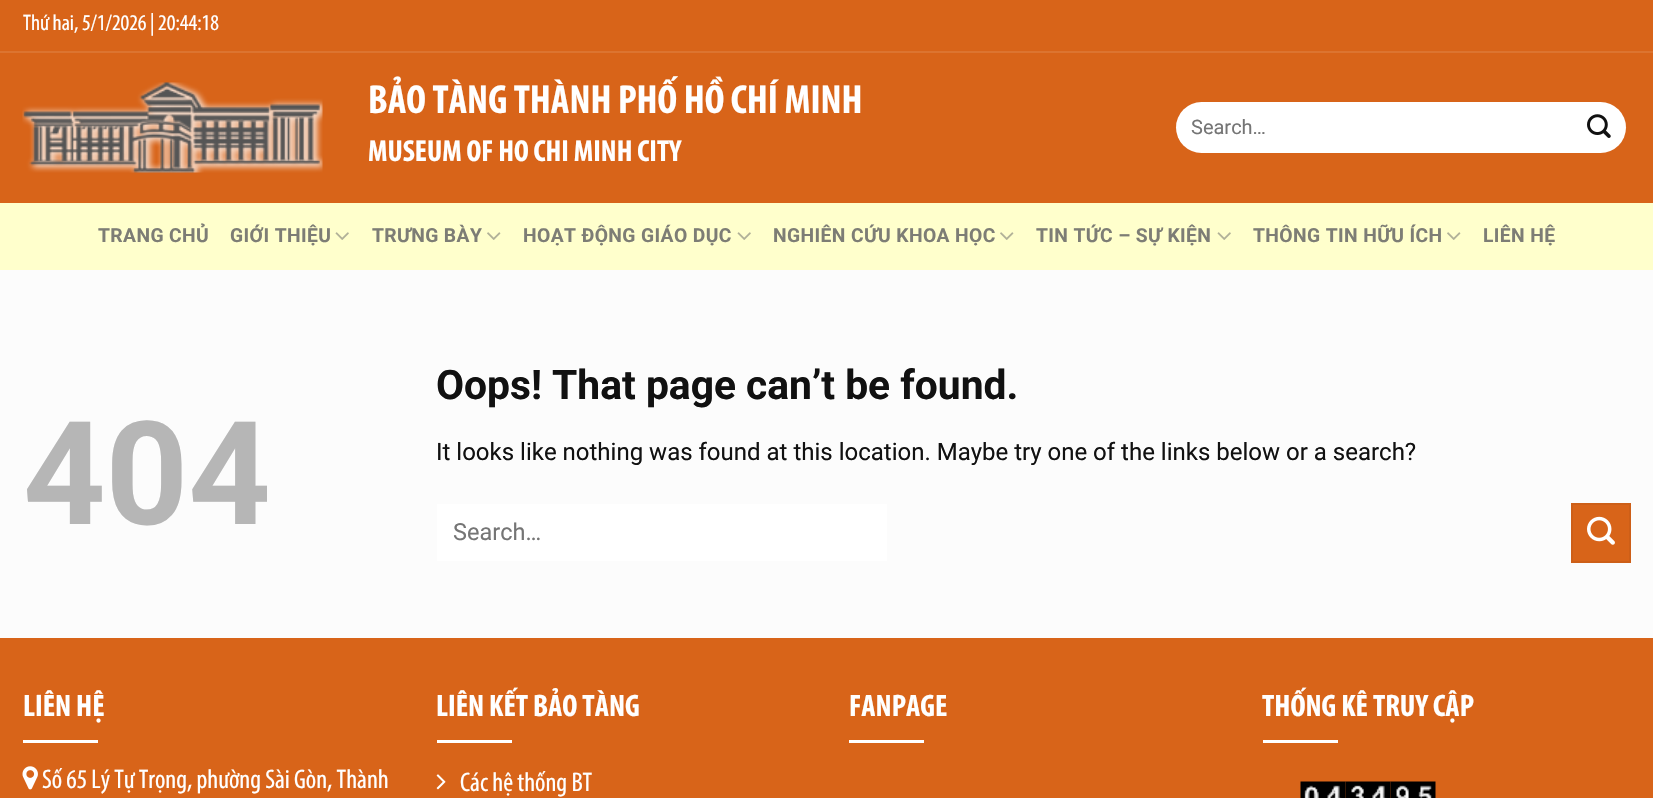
static SkFont makeFont(const char* family, int weight, float size, bool italic = false) {
  SkFontStyle style(weight, SkFontStyle::kNormal_Width,
    italic ? SkFontStyle::kItalic_Slant : SkFontStyle::kUpright_Slant);
  SkFont result(fontMgr->matchFamilyStyle(family, style), size);
  result.setSubpixel(true);
  return result;
}

static void text(SkCanvas* c, const char* s, float x, float y, const SkFont& font, SkColor color) {
  SkPaint ink(SkColor4f::FromColor(color));
  ink.setAntiAlias(true);
  c->drawString(s, x, y, font, ink);
}

static void spacedText(SkCanvas* c, const char* s, float x, float y, const SkFont& font, const SkPaint& ink, float letter, float word) {
  std::vector<SkGlyphID> glyphs(font.countText(s, strlen(s), SkTextEncoding::kUTF8));
  std::vector<float> xs(glyphs.size());
  font.textToGlyphs(s, strlen(s), SkTextEncoding::kUTF8, glyphs);
  font.getXPos(glyphs, xs, x);
  float extra = 0;
  for (size_t i = 0; i < glyphs.size(); i++) {
    xs[i] += extra;
    extra += letter + word * (glyphs[i] == font.unicharToGlyph(' '));
  }
  c->drawTextBlob(SkTextBlob::MakeFromPosHGlyphs(glyphs, xs, y, font), 0, 0, ink);
}

static void box(SkCanvas* c, float l, float t, float r, float b, SkColor color) {
  SkPaint ink(SkColor4f::FromColor(color));
  ink.setAntiAlias(true);
  c->drawRect(SkRect::MakeLTRB(l, t, r, b), ink);
}

static void roundBox(SkCanvas* c, float l, float t, float r, float b, float radius, SkColor color) {
  SkPaint ink(SkColor4f::FromColor(color));
  ink.setAntiAlias(true);
  c->drawRoundRect(SkRect::MakeLTRB(l, t, r, b), radius, radius, ink);
}

static void picture(SkCanvas* c, const char* path, float l, float t, float r, float b) {
  auto image = SkImages::DeferredFromEncodedData(SkData::MakeFromFileName(path));
  c->drawImageRect(image, SkRect::MakeLTRB(l, t, r, b), SkSamplingOptions());
}

void draw(SkCanvas* c) {
  SkPaint paint;
  paint.setAntiAlias(true);
  c->clear(0xfffcfcfc);
  box(c, 0, 0, 1653, 203, 0xffd86419);
  box(c, 0, 51, 1653, 53, 0xffdc7430);
  SkFont face1 = makeFont("Myriad", 400, 22.5f);
  text(c, "Thứ hai, 5/1/2026 | 20:44:18", 23, 30, face1, 0xffffffff);
  picture(c, "img_01.png", 22, 82, 323, 173);
  SkFont face2 = makeFont("Myriad", 700, 40.75f);
  text(c, "BẢO TÀNG THÀNH PHỐ HỒ CHÍ MINH", 368, 113, face2, 0xffffffff);
  SkFont face3 = makeFont("Myriad", 700, 30.6f);
  text(c, "MUSEUM OF HO CHI MINH CITY", 368, 161, face3, 0xffffffff);
  roundBox(c, 1176, 102, 1626, 153, 25.5f, 0xffffffff);
  SkFont face4 = makeFont("Roboto", 400, 20);
  text(c, "Search…", 1191, 134, face4, 0xff757575);
  picture(c, "img_02.png", 1587, 114, 1611, 138);
  box(c, 0, 203, 1653, 270, 0xffffffcc);
  SkFont face5 = makeFont("Roboto", 700, 19.25f);
  paint.setColor(0xff7d7d75);
  spacedText(c, "TRANG CHỦ", 98, 242, face5, paint, 0.4f, 0);
  spacedText(c, "GIỚI THIỆU", 230, 242, face5, paint, 0.4f, 0);
  picture(c, "img_03.png", 335, 232, 349, 240);
  spacedText(c, "TRƯNG BÀY", 372, 242, face5, paint, 0.4f, 0);
  picture(c, "img_04.png", 487, 232, 501, 240);
  spacedText(c, "HOẠT ĐỘNG GIÁO DỤC", 523, 242, face5, paint, 0.4f, 0);
  picture(c, "img_03.png", 737, 232, 751, 240);
  spacedText(c, "NGHIÊN CỨU KHOA HỌC", 773, 242, face5, paint, 0.4f, 0);
  picture(c, "img_04.png", 1000, 232, 1014, 240);
  spacedText(c, "TIN TỨC – SỰ KIỆN", 1036, 242, face5, paint, 0.4f, 0);
  picture(c, "img_03.png", 1217, 232, 1231, 240);
  spacedText(c, "THÔNG TIN HỮU ÍCH", 1253, 242, face5, paint, 0.4f, 0);
  picture(c, "img_04.png", 1447, 232, 1461, 240);
  spacedText(c, "LIÊN HỆ", 1483, 242, face5, paint, 0.4f, 0);
  SkFont face6 = makeFont("Roboto", 700, 144);
  text(c, "404", 23, 524, face6, 0xffb6b6b6);
  SkFont face7 = makeFont("Roboto", 700, 40.75f);
  text(c, "Oops! That page can’t be found.", 436, 399, face7, 0xff111111);
  SkFont face8 = makeFont("Roboto", 400, 24);
  text(c, "It looks like nothing was found at this location. Maybe try one of the links below or a search?", 436, 460, face8, 0xff111111);
  box(c, 437, 504, 887, 561, 0xffffffff);
  SkFont face9 = makeFont("Roboto", 400, 23.5f);
  text(c, "Search…", 453, 540, face9, 0xff757575);
  paint.setColor(0xffd86419);
  c->drawRect(SkRect::MakeLTRB(1572, 504, 1630, 562), paint);
  paint.setStyle(SkPaint::kStroke_Style);
  paint.setStrokeWidth(2);
  paint.setColor(0xffcd5f18);
  c->drawRect(SkRect::MakeLTRB(1572, 504, 1630, 562), paint);
  picture(c, "img_05.png", 1587, 516, 1615, 545);
  box(c, 0, 638, 1653, 798, 0xffd86419);
  SkFont face10 = makeFont("Myriad", 700, 31.25f);
  text(c, "LIÊN HỆ", 23, 716, face10, 0xffffffff);
  box(c, 23, 740, 98, 743, 0xffffffff);
  picture(c, "img_06.png", 22, 766, 38, 790);
  SkFont face11 = makeFont("Myriad", 400, 27);
  text(c, "Số 65 Lý Tự Trọng, phường Sài Gòn, Thành", 42, 788, face11, 0xffffffff);
  text(c, "LIÊN KẾT BẢO TÀNG", 436, 716, face10, 0xffffffff);
  box(c, 437, 740, 512, 743, 0xffffffff);
  picture(c, "img_07.png", 436, 774, 446, 790);
  text(c, "Các hệ thống BT", 460, 791, face11, 0xffffffff);
  text(c, "FANPAGE", 849, 716, face10, 0xffffffff);
  box(c, 849, 740, 924, 743, 0xffffffff);
  text(c, "THỐNG KÊ TRUY CẬP", 1262, 716, face10, 0xffffffff);
  box(c, 1263, 740, 1338, 743, 0xffffffff);
  picture(c, "img_08.png", 1300, 781, 1323, 798);
  picture(c, "img_09.png", 1323, 781, 1346, 798);
  picture(c, "img_10.png", 1345, 781, 1368, 798);
  picture(c, "img_11.png", 1368, 781, 1391, 798);
  picture(c, "img_12.png", 1390, 781, 1413, 798);
  picture(c, "img_13.png", 1413, 781, 1436, 798);
}
